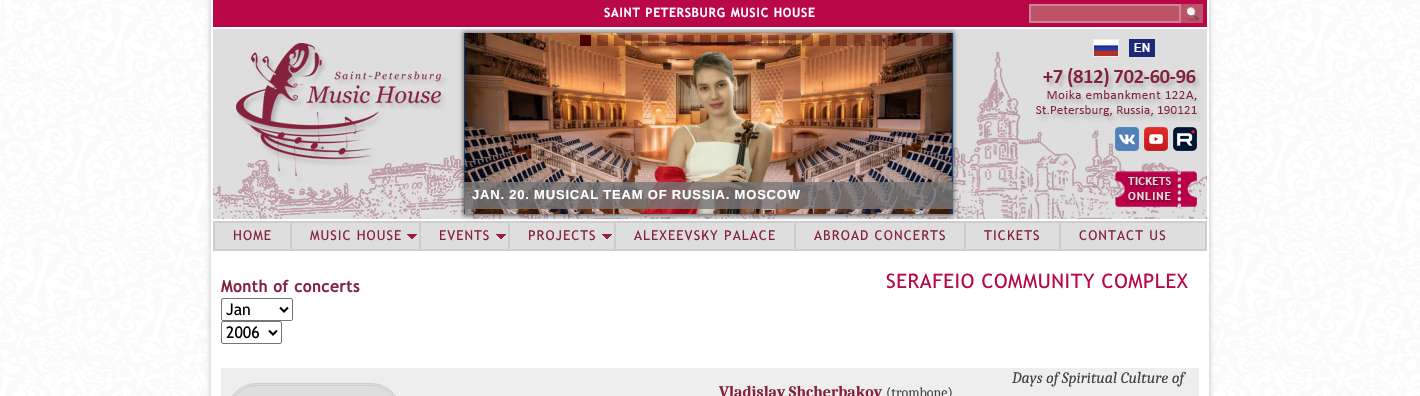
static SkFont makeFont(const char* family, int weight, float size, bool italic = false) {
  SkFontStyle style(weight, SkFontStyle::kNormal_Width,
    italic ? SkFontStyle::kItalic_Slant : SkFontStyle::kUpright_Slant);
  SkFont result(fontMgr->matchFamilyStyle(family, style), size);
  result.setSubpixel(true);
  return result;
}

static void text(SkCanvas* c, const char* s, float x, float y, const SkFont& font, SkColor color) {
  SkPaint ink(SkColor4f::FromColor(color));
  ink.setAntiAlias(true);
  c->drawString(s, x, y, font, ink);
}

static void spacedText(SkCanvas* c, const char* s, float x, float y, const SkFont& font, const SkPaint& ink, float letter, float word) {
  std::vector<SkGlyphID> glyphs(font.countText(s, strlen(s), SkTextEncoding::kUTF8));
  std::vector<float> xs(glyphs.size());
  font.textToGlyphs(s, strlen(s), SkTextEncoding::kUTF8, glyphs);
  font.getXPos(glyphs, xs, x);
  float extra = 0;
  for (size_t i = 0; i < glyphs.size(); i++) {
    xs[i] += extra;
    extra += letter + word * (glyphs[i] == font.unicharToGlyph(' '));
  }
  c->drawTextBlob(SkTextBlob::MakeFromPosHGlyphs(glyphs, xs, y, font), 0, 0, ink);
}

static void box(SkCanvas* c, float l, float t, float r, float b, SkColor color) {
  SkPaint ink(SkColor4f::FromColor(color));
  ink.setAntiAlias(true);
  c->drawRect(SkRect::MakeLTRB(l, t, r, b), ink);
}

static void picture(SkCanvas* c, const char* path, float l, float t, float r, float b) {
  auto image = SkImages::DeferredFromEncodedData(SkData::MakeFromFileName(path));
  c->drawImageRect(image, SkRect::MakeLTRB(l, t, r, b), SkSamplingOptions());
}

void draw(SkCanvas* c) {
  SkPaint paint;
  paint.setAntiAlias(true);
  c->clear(0xffffffff);
  picture(c, "img_01.png", 0, 0, 1420, 396);
  paint.setColor(0xffcdcdcd);
  paint.setMaskFilter(SkMaskFilter::MakeBlur(kNormal_SkBlurStyle, 2.5f));
  c->drawRect(SkRect::MakeLTRB(210, -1, 1210, 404), paint);
  paint.setMaskFilter(nullptr);
  box(c, 211, 0, 1209, 396, 0xffffffff);
  box(c, 213, 0, 1207, 27, 0xffb90747);
  SkFont face1 = makeFont("Trebuchet MS", 700, 12.3f);
  paint.setColor(0xffffffff);
  spacedText(c, "SAINT PETERSBURG MUSIC HOUSE", 604, 17, face1, paint, 1, 0);
  paint.setColor(0xffbd5369);
  c->drawRect(SkRect::MakeLTRB(1030, 5, 1180, 22), paint);
  paint.setStyle(SkPaint::kStroke_Style);
  paint.setStrokeWidth(2);
  paint.setColor(0xffd08393);
  c->drawRect(SkRect::MakeLTRB(1030, 5, 1180, 22), paint);
  picture(c, "img_02.png", 1181, 4, 1203, 23);
  picture(c, "img_03.png", 213, 29, 1207, 219);
  picture(c, "img_04.png", 1093, 39, 1119, 57);
  picture(c, "img_05.png", 1129, 39, 1155, 57);
  picture(c, "img_06.png", 1115, 127, 1139, 151);
  picture(c, "img_07.png", 1144, 127, 1168, 151);
  picture(c, "img_08.png", 1173, 127, 1197, 151);
  picture(c, "img_09.png", 1115, 171, 1197, 207);
  paint.setStyle(SkPaint::kFill_Style);
  paint.setColor(0xffdedede);
  c->drawRect(SkRect::MakeLTRB(214, 222, 1206, 250), paint);
  paint.setStyle(SkPaint::kStroke_Style);
  paint.setColor(0xffcdcdcd);
  c->drawRect(SkRect::MakeLTRB(214, 222, 1206, 250), paint);
  paint.setStyle(SkPaint::kFill_Style);
  paint.setColor(0x80000000);
  paint.setMaskFilter(SkMaskFilter::MakeBlur(kNormal_SkBlurStyle, 2));
  c->drawRect(SkRect::MakeLTRB(463, 32, 954, 216), paint);
  paint.setMaskFilter(nullptr);
  picture(c, "img_10.png", 464, 33, 953, 214);
  box(c, 580, 35, 591, 46, 0xff4d0000);
  box(c, 597, 35, 608, 46, 0x664b0000);
  box(c, 614, 35, 625, 46, 0x664b0000);
  box(c, 631, 35, 642, 46, 0x664b0000);
  box(c, 648, 35, 659, 46, 0x664b0000);
  box(c, 666, 35, 677, 46, 0x664b0000);
  box(c, 683, 35, 694, 46, 0x664b0000);
  box(c, 700, 35, 711, 46, 0x664b0000);
  box(c, 717, 35, 728, 46, 0x664b0000);
  box(c, 734, 35, 745, 46, 0x664b0000);
  box(c, 751, 35, 762, 46, 0x664b0000);
  box(c, 768, 35, 779, 46, 0x664b0000);
  box(c, 785, 35, 796, 46, 0x664b0000);
  box(c, 802, 35, 813, 46, 0x664b0000);
  box(c, 819, 35, 830, 46, 0x664b0000);
  box(c, 836, 35, 847, 46, 0x664b0000);
  box(c, 854, 35, 865, 46, 0x664b0000);
  box(c, 871, 35, 882, 46, 0x664b0000);
  box(c, 888, 35, 899, 46, 0x664b0000);
  box(c, 905, 35, 916, 46, 0x664b0000);
  box(c, 922, 35, 933, 46, 0x664b0000);
  box(c, 939, 35, 950, 46, 0x664b0000);
  box(c, 464, 182, 953, 209, 0xd1787676);
  SkFont face2 = makeFont("Liberation Sans", 700, 13);
  paint.setColor(0xffffffff);
  spacedText(c, "JAN. 20. MUSICAL TEAM OF RUSSIA. MOSCOW", 472, 199, face2, paint, 0.8f, 0);
  box(c, 290, 223, 292, 249, 0xffcdcdcd);
  SkFont face3 = makeFont("Trebuchet MS", 400, 13.5f);
  paint.setColor(0xff85233c);
  spacedText(c, "HOME", 233, 240, face3, paint, 1.1f, 0);
  picture(c, "img_11.png", 407, 234, 417, 239);
  box(c, 419, 223, 421, 249, 0xffcdcdcd);
  spacedText(c, "MUSIC HOUSE", 310, 240, face3, paint, 1, 0);
  picture(c, "img_11.png", 496, 234, 506, 239);
  box(c, 508, 223, 510, 249, 0xffcdcdcd);
  spacedText(c, "EVENTS", 439, 240, face3, paint, 1, 0);
  picture(c, "img_11.png", 602, 234, 612, 239);
  box(c, 614, 223, 616, 249, 0xffcdcdcd);
  spacedText(c, "PROJECTS", 528, 240, face3, paint, 1, 0);
  box(c, 794, 223, 796, 249, 0xffcdcdcd);
  spacedText(c, "ALEXEEVSKY PALACE", 634, 240, face3, paint, 1.1f, 0);
  box(c, 964, 223, 966, 249, 0xffcdcdcd);
  spacedText(c, "ABROAD CONCERTS", 814, 240, face3, paint, 1.1f, 0);
  box(c, 1059, 223, 1061, 249, 0xffcdcdcd);
  spacedText(c, "TICKETS", 984, 240, face3, paint, 1.1f, 0);
  spacedText(c, "CONTACT US", 1079, 240, face3, paint, 1.1f, 0);
  SkFont face4 = makeFont("Trebuchet MS", 700, 16);
  spacedText(c, "Month of concerts", 221, 292, face4, paint, 0.6f, 0);
  paint.setStyle(SkPaint::kStroke_Style);
  paint.setStrokeWidth(1);
  paint.setColor(0xff767676);
  c->drawRoundRect(SkRect::MakeLTRB(221.5f, 298.5f, 292.5f, 320.5f), 1.5f, 1.5f, paint);
  paint.setStrokeWidth(2);
  paint.setColor(0xff000000);
  c->drawPath(SkPathBuilder().moveTo(280, 307.5f).lineTo(284, 311.5f).lineTo(288, 307.5f).detach(), paint);
  SkFont face5 = makeFont("Trebuchet MS", 400, 16);
  text(c, "Jan", 226, 315, face5, 0xff000000);
  paint.setStrokeWidth(1);
  paint.setColor(0xff767676);
  c->drawRoundRect(SkRect::MakeLTRB(221.5f, 321.5f, 281.5f, 343.5f), 1.5f, 1.5f, paint);
  paint.setStrokeWidth(2);
  paint.setColor(0xff000000);
  c->drawPath(SkPathBuilder().moveTo(269, 330.5f).lineTo(273, 334.5f).lineTo(277, 330.5f).detach(), paint);
  text(c, "2006", 226, 338, face5, 0xff000000);
  SkFont face6 = makeFont("Trebuchet MS", 400, 20);
  paint.setStyle(SkPaint::kFill_Style);
  paint.setColor(0xffb90747);
  spacedText(c, "SERAFEIO COMMUNITY COMPLEX", 886, 288, face6, paint, 0.6f, 0);
  box(c, 221, 368, 1199, 396, 0xffeeeeee);
  SkFont face7 = makeFont("Caladea", 400, 16, true);
  text(c, "Days of Spiritual Culture of", 1012, 383, face7, 0xff444444);
  paint.setColor(0xffdedede);
  c->drawRoundRect(SkRect::MakeLTRB(226.5f, 383.5f, 401.5f, 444.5f), 47.5f, 47.5f, paint);
  paint.setStyle(SkPaint::kStroke_Style);
  paint.setStrokeWidth(1);
  paint.setColor(0xffcecdce);
  c->drawRoundRect(SkRect::MakeLTRB(226.5f, 383.5f, 401.5f, 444.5f), 47.5f, 47.5f, paint);
  c->drawRoundRect(SkRect::MakeLTRB(228.5f, 385.5f, 399.5f, 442.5f), 45.5f, 45.5f, paint);
  SkFont face8 = makeFont("Caladea", 700, 16);
  text(c, "Vladislav Shcherbakov", 719, 397, face8, 0xff85233c);
  SkFont face9 = makeFont("Caladea", 400, 14);
  text(c, "(trombone)", 886, 397, face9, 0xff444444);
}
